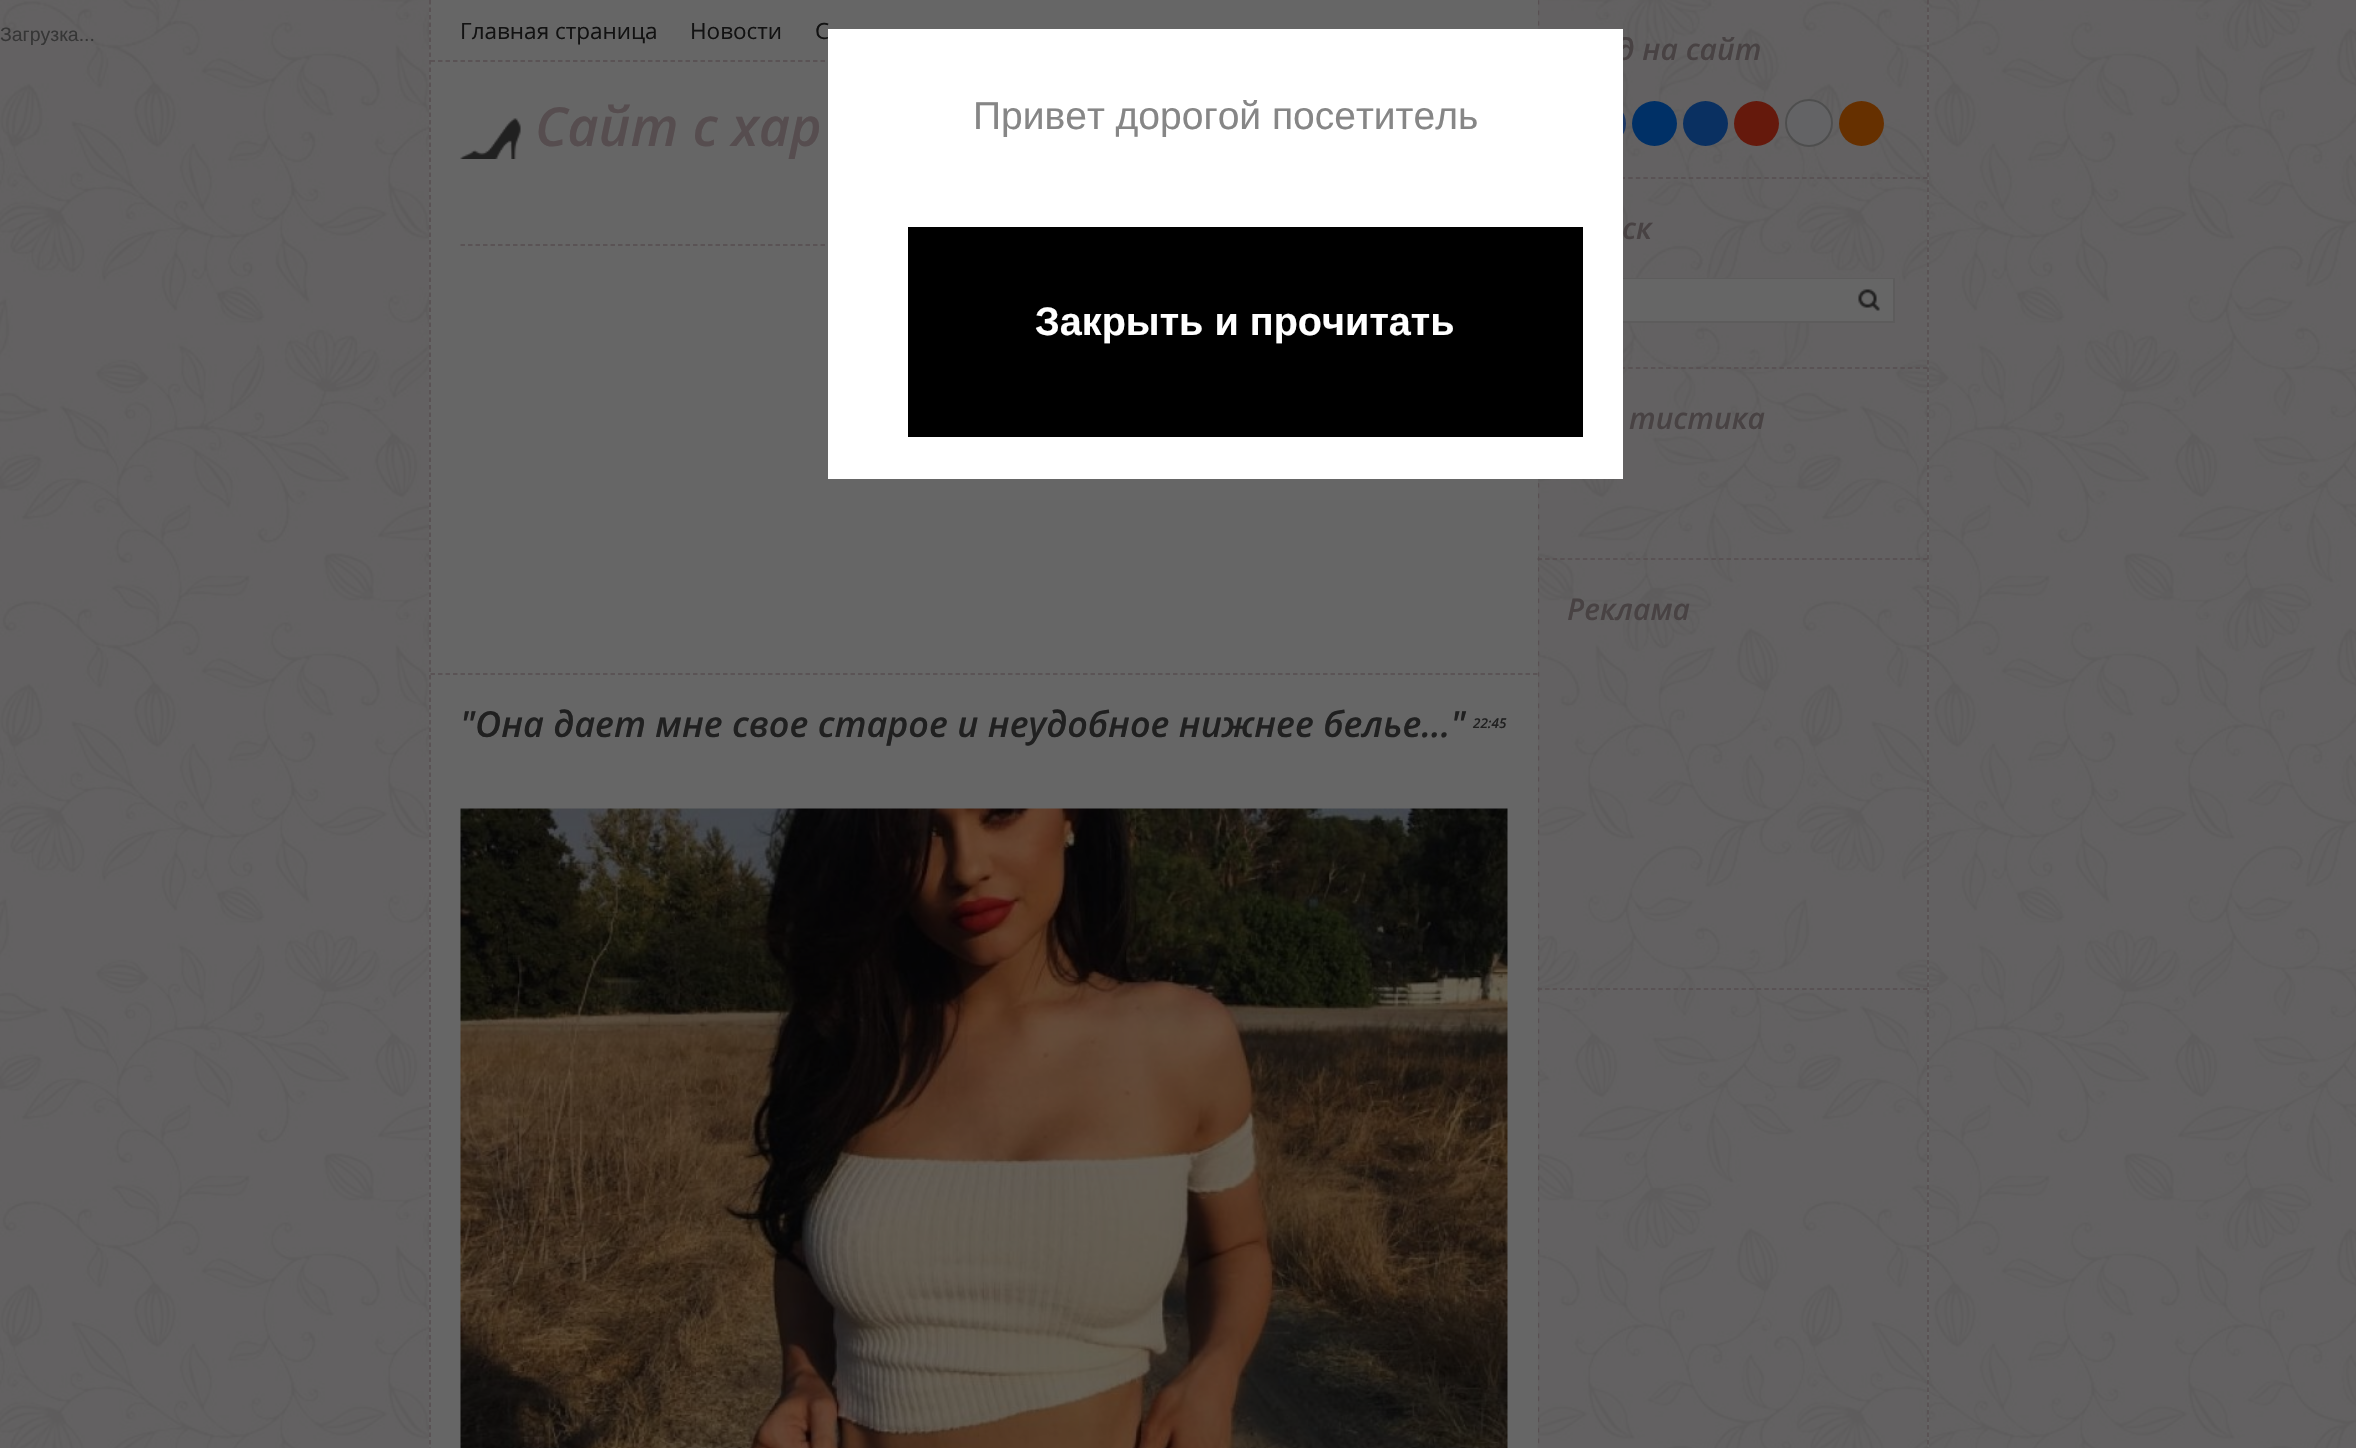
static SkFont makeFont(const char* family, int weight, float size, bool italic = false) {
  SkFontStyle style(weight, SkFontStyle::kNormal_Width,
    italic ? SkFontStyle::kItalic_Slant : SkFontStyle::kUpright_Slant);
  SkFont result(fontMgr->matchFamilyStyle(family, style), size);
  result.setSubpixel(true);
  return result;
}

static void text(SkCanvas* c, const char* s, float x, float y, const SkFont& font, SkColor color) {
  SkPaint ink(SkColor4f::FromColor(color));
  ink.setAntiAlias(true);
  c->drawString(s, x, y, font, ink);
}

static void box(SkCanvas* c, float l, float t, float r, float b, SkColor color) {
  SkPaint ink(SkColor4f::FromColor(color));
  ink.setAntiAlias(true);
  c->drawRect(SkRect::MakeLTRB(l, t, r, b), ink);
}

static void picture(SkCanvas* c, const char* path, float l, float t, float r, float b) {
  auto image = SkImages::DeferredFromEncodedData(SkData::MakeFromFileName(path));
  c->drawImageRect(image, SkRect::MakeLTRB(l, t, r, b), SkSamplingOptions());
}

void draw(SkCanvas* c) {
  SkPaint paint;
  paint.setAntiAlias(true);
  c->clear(0xffffffff);
  picture(c, "img_01.png", 0, 0, 2356, 1448);
  SkFont face1 = makeFont("Liberation Sans", 400, 19.5f);
  text(c, "Загрузка...", 0, 41, face1, 0xff363636);
  picture(c, "img_02.png", 429, 0, 1929, 1448);
  paint.setStyle(SkPaint::kStroke_Style);
  paint.setStrokeWidth(1.5f);
  paint.setColor(0xff564d4f);
  paint.setPathEffect(SkDashPathEffect::Make({{4.5f, 3}}, 0));
  c->drawPath(SkPathBuilder().moveTo(1928, 0).lineTo(1928, 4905).detach(), paint);
  paint.setPathEffect(nullptr);
  paint.setPathEffect(SkDashPathEffect::Make({{4.5f, 3}}, 0));
  c->drawPath(SkPathBuilder().moveTo(430, 0).lineTo(430, 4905).detach(), paint);
  paint.setPathEffect(nullptr);
  box(c, 1537, 0, 1538, 1444, 0xff666666);
  paint.setPathEffect(SkDashPathEffect::Make({{4.5f, 3}}, 0));
  c->drawPath(SkPathBuilder().moveTo(430.5f, 61).lineTo(1537.5f, 61).detach(), paint);
  paint.setPathEffect(nullptr);
  SkFont face2 = makeFont("Open Sans", 400, 22.5f);
  text(c, "Главная страница", 460, 39, face2, 0xff121212);
  text(c, "Новости", 690, 39, face2, 0xff121212);
  text(c, "С", 815, 39, face2, 0xff121212);
  picture(c, "img_03.png", 460, 118, 521, 159);
  SkFont face3 = makeFont("Open Sans", 600, 54, true);
  text(c, "Сайт с хар", 535, 146, face3, 0xff564d4f);
  paint.setPathEffect(SkDashPathEffect::Make({{4.5f, 3}}, 0));
  c->drawPath(SkPathBuilder().moveTo(460.5f, 245).lineTo(1507.5f, 245).detach(), paint);
  paint.setPathEffect(nullptr);
  paint.setPathEffect(SkDashPathEffect::Make({{4.5f, 3}}, 0));
  c->drawPath(SkPathBuilder().moveTo(430.5f, 674).lineTo(1537.5f, 674).detach(), paint);
  paint.setPathEffect(nullptr);
  SkFont face4 = makeFont("Open Sans", 600, 36, true);
  text(c, "\"Она дает мне свое старое и неудобное нижнее белье...\"", 460, 737, face4, 0xff202020);
  SkFont face5 = makeFont("Open Sans", 600, 13.5f, true);
  text(c, "22:45", 1473, 728, face5, 0xff202020);
  picture(c, "img_04.png", 460, 808, 1508, 1448);
  paint.setPathEffect(SkDashPathEffect::Make({{4.5f, 3.06f}}, 0));
  c->drawPath(SkPathBuilder().moveTo(1537.5f, 178).lineTo(1927.5f, 178).detach(), paint);
  paint.setPathEffect(nullptr);
  SkFont face6 = makeFont("Open Sans", 600, 30, true);
  text(c, "д на сайт", 1617, 60, face6, 0xff484243);
  paint.setStyle(SkPaint::kFill_Style);
  paint.setColor(0xff1d3864);
  c->drawCircle(1603.5f, 123.5f, 22.5f, paint);
  paint.setColor(0xff003066);
  c->drawCircle(1654.5f, 123.5f, 22.5f, paint);
  paint.setColor(0xff0a3061);
  c->drawCircle(1705.5f, 123.5f, 22.5f, paint);
  paint.setColor(0xff65190c);
  c->drawCircle(1756.5f, 123.5f, 22.5f, paint);
  paint.setColor(0xff636365);
  c->drawCircle(1809, 123, 23, paint);
  paint.setStyle(SkPaint::kStroke_Style);
  paint.setStrokeWidth(2);
  paint.setColor(0xff4e4e4e);
  c->drawCircle(1809, 123, 23, paint);
  paint.setStyle(SkPaint::kFill_Style);
  paint.setColor(0xff663000);
  c->drawCircle(1861.5f, 123.5f, 22.5f, paint);
  paint.setStyle(SkPaint::kStroke_Style);
  paint.setStrokeWidth(1.5f);
  paint.setColor(0xff564d4f);
  paint.setPathEffect(SkDashPathEffect::Make({{4.5f, 3.06f}}, 0));
  c->drawPath(SkPathBuilder().moveTo(1537.5f, 368).lineTo(1927.5f, 368).detach(), paint);
  paint.setPathEffect(nullptr);
  text(c, "ск", 1622, 239, face6, 0xff484243);
  paint.setStrokeWidth(2);
  paint.setColor(0xff5d5c5c);
  c->drawRect(SkRect::MakeLTRB(1570, 279, 1894, 322), paint);
  box(c, 1623, 279, 1893, 321, 0xff666666);
  picture(c, "img_05.png", 1858, 289, 1880, 311);
  paint.setStrokeWidth(1.5f);
  paint.setColor(0xff564d4f);
  paint.setPathEffect(SkDashPathEffect::Make({{4.5f, 3.06f}}, 0));
  c->drawPath(SkPathBuilder().moveTo(1537.5f, 559).lineTo(1927.5f, 559).detach(), paint);
  paint.setPathEffect(nullptr);
  text(c, "тистика", 1629, 429, face6, 0xff484243);
  paint.setPathEffect(SkDashPathEffect::Make({{4.5f, 3.06f}}, 0));
  c->drawPath(SkPathBuilder().moveTo(1537.5f, 989).lineTo(1927.5f, 989).detach(), paint);
  paint.setPathEffect(nullptr);
  text(c, "Реклама", 1567, 620, face6, 0xff484243);
  box(c, 828, 29, 1623, 479, 0xffffffff);
  SkFont face7 = makeFont("Liberation Sans", 400, 39);
  text(c, "Привет дорогой посетитель", 973, 129, face7, 0xff868686);
  box(c, 908, 227, 1583, 437, 0xff000000);
  SkFont face8 = makeFont("Liberation Sans", 700, 39.6f);
  text(c, "Закрыть и прочитать", 1035, 335, face8, 0xffffffff);
}
